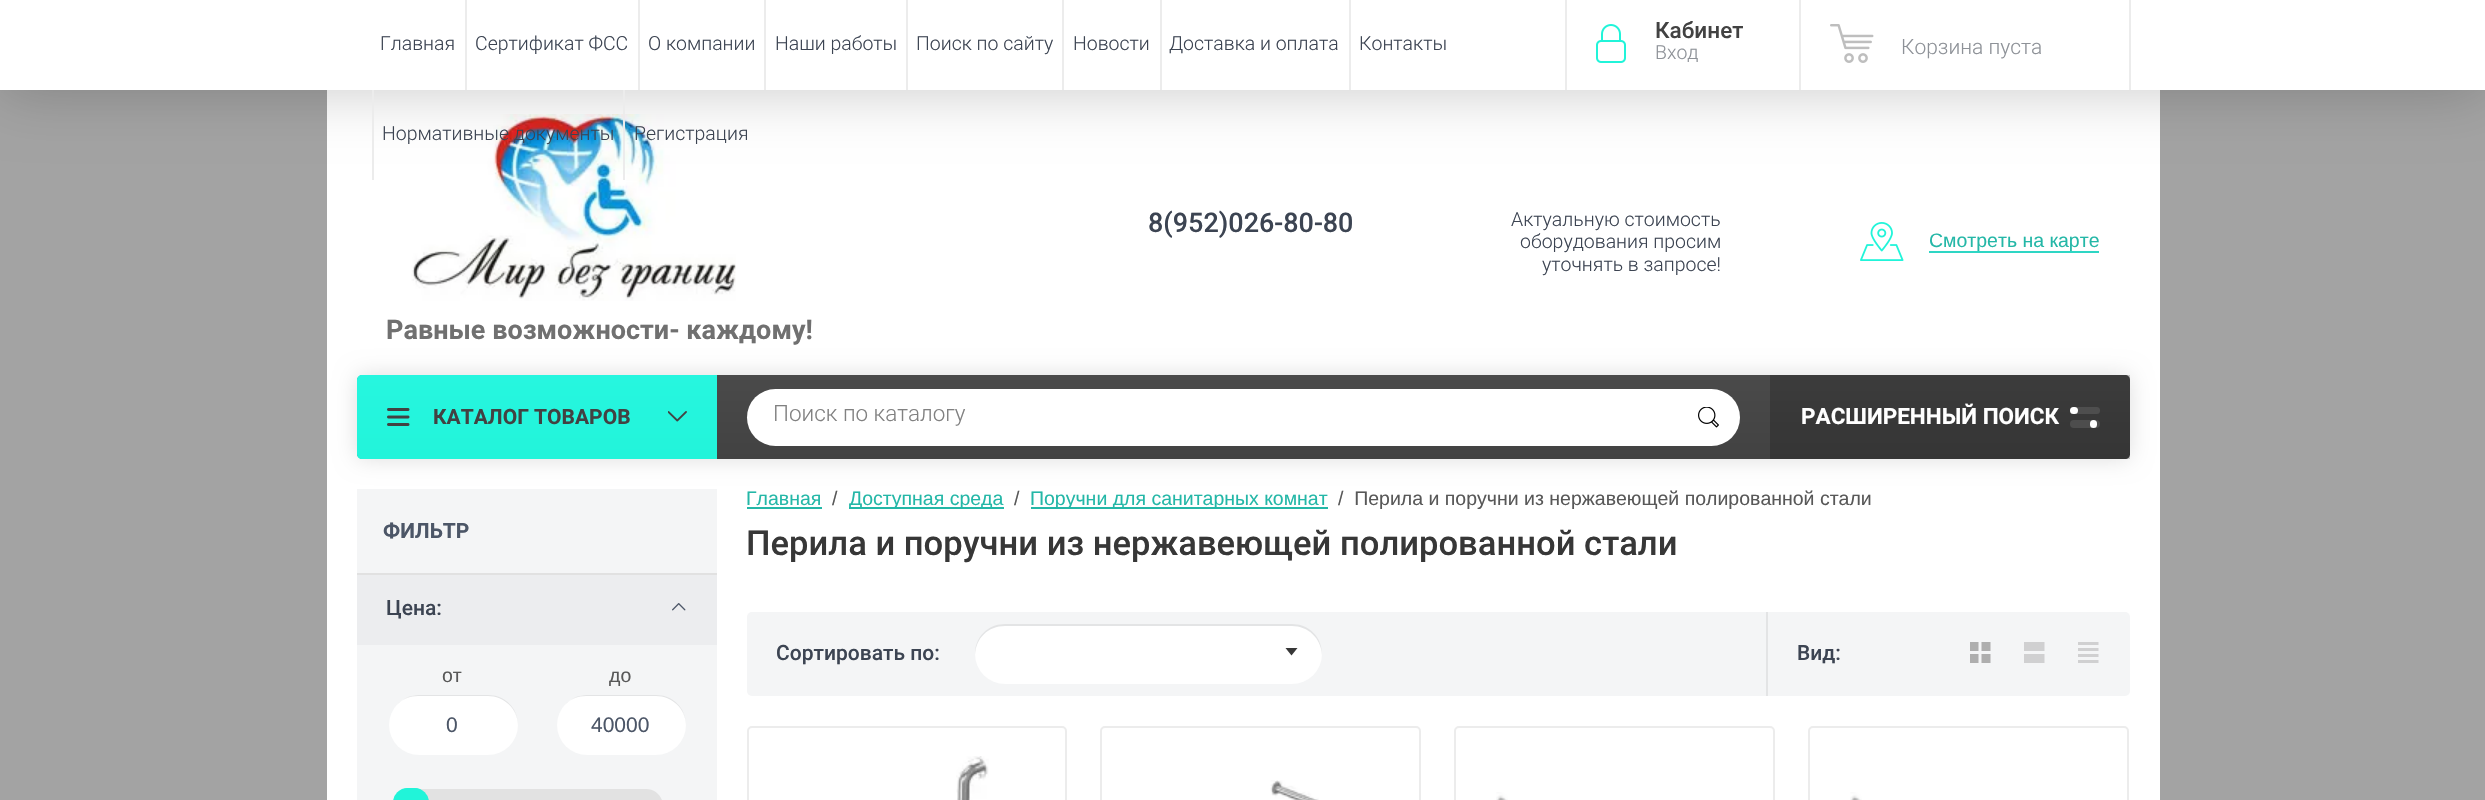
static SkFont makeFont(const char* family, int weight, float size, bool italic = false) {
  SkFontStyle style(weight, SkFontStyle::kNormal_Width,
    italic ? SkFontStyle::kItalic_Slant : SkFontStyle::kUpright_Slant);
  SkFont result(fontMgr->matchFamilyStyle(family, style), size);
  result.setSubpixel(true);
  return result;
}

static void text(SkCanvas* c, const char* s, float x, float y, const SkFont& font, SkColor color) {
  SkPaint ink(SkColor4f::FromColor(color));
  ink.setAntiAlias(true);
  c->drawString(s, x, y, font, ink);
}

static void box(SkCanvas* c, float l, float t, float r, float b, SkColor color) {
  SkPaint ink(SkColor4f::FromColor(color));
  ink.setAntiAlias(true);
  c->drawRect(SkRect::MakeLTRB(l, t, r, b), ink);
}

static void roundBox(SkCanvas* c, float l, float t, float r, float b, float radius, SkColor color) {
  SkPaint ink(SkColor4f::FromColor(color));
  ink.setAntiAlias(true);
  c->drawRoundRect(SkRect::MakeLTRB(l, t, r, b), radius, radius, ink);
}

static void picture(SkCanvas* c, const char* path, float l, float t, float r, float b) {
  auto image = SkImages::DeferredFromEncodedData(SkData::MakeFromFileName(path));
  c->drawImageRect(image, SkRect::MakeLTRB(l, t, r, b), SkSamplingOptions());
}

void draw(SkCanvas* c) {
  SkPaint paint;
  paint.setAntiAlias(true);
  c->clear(0xffa3a3a3);
  box(c, 327, 90, 2160, 800, 0xffffffff);
  picture(c, "img_04.png", 411, 114, 736, 301);
  paint.setColor(0x33000000);
  paint.setMaskFilter(SkMaskFilter::MakeBlur(kNormal_SkBlurStyle, 30));
  c->drawRect(SkRect::MakeLTRB(0, 2, 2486, 92), paint);
  paint.setMaskFilter(nullptr);
  box(c, 0, 0, 2485, 90, 0xffffffff);
  SkFont face1 = makeFont("Roboto", 300, 19.5f);
  text(c, "Главная", 380, 50, face1, 0xff3c4452);
  box(c, 465, 0, 467, 90, 0xffececec);
  text(c, "Сертификат ФСС", 475, 50, face1, 0xff3c4452);
  box(c, 638, 0, 640, 90, 0xffececec);
  text(c, "О компании", 648, 50, face1, 0xff3c4452);
  box(c, 764, 0, 766, 90, 0xffececec);
  text(c, "Наши работы", 775, 50, face1, 0xff3c4452);
  box(c, 906, 0, 908, 90, 0xffececec);
  text(c, "Поиск по сайту", 916, 50, face1, 0xff3c4452);
  box(c, 1062, 0, 1064, 90, 0xffececec);
  text(c, "Новости", 1073, 50, face1, 0xff3c4452);
  box(c, 1160, 0, 1162, 90, 0xffececec);
  text(c, "Доставка и оплата", 1169, 50, face1, 0xff3c4452);
  box(c, 1349, 0, 1351, 90, 0xffececec);
  text(c, "Контакты", 1359, 50, face1, 0xff3c4452);
  box(c, 372, 90, 374, 180, 0xffececec);
  text(c, "Нормативные документы", 382, 140, face1, 0xff3c4452);
  box(c, 623, 90, 625, 180, 0xffececec);
  text(c, "Регистрация", 634, 140, face1, 0xff3c4452);
  box(c, 1565, 0, 1567, 90, 0xffececec);
  box(c, 1799, 0, 1801, 90, 0xffececec);
  picture(c, "img_01.png", 1596, 24, 1626, 63);
  SkFont face2 = makeFont("Roboto", 500, 22.5f);
  text(c, "Кабинет", 1655, 38, face2, 0xff424242);
  text(c, "Вход", 1655, 59, face1, 0xff8e9298);
  box(c, 2129, 0, 2131, 90, 0xffececec);
  picture(c, "img_02.png", 1830, 24, 1874, 63);
  SkFont face3 = makeFont("Roboto", 300, 21);
  text(c, "Корзина пуста", 1901, 54, face3, 0xff8e9298);
  SkFont face4 = makeFont("Roboto", 500, 27);
  text(c, "8(952)026-80-80", 1148, 232, face4, 0xff3c4452);
  text(c, "Актуальную стоимость", 1511, 226, face1, 0xff3c4452);
  text(c, "оборудования просим", 1520, 248, face1, 0xff3c4452);
  text(c, "уточнять в запросе!", 1542, 271, face1, 0xff3c4452);
  picture(c, "img_03.png", 1860, 222, 1904, 261);
  box(c, 1929, 251, 2099, 253, 0xff2ed6c4);
  SkFont face5 = makeFont("Liberation Sans", 400, 19.5f);
  text(c, "Смотреть на карте", 1929, 247, face5, 0xff24b7a7);
  SkFont face6 = makeFont("Roboto", 700, 27);
  text(c, "Равные возможности- каждому!", 386, 339, face6, 0xff707070);
  paint.setColor(0x21000000);
  paint.setMaskFilter(SkMaskFilter::MakeBlur(kNormal_SkBlurStyle, 11));
  c->drawRoundRect(SkRect::MakeLTRB(357, 375, 2130, 459), 6, 6, paint);
  paint.setMaskFilter(nullptr);
  {
    const SkColor colors[] = {0xff424242, 0xff4a4a4a};
    const float stops[] = {0, 1};
    const SkPoint ends[] = {{1244, 459}, {1244, 375}};
    paint.setShader(SkGradientShader::MakeLinear(ends, colors, stops, 2, SkTileMode::kClamp));
    paint.setAlpha(255);
  }
  c->drawPath(SkPathBuilder().moveTo(363, 375).lineTo(2125, 375).cubicTo(2128, 375, 2130, 377, 2130, 380).lineTo(2130, 454).cubicTo(2130, 457, 2128, 459, 2125, 459).lineTo(363, 459).cubicTo(359.5f, 459, 357, 456.5f, 357, 453).lineTo(357, 381).cubicTo(357, 377.5f, 359.5f, 375, 363, 375).close().detach(), paint);
  {
    const SkColor colors[] = {0xff22f4da, 0xff26f6df};
    const float stops[] = {0, 1};
    const SkPoint ends[] = {{537, 459}, {537, 375}};
    paint.setShader(SkGradientShader::MakeLinear(ends, colors, stops, 2, SkTileMode::kClamp));
    paint.setAlpha(255);
  }
  c->drawPath(SkPathBuilder().moveTo(362, 375).lineTo(717, 375).lineTo(717, 459).lineTo(362, 459).cubicTo(359, 459, 357, 457, 357, 454).lineTo(357, 380).cubicTo(357, 377, 359, 375, 362, 375).close().detach(), paint);
  picture(c, "img_05.png", 387, 408, 410, 426);
  SkFont face7 = makeFont("Roboto", 700, 21);
  text(c, "КАТАЛОГ ТОВАРОВ", 433, 424, face7, 0xff424242);
  picture(c, "img_06.png", 668, 411, 687, 422);
  roundBox(c, 747, 389, 1740, 446, 28.5f, 0xffffffff);
  SkFont face8 = makeFont("Roboto", 300, 22.5f);
  text(c, "Поиск по каталогу", 773, 421, face8, 0xff818181);
  picture(c, "img_07.png", 1698, 407, 1719, 428);
  box(c, 1770, 375, 2130, 459, 0x33000000);
  SkFont face9 = makeFont("Roboto", 700, 22.5f);
  text(c, "РАСШИРЕННЫЙ ПОИСК", 1801, 424, face9, 0xffffffff);
  roundBox(c, 2070, 407, 2100, 414, 3.5f, 0xff4e4e4e);
  roundBox(c, 2070, 407, 2078, 414, 3.5f, 0xffffffff);
  roundBox(c, 2070, 420, 2100, 428, 4, 0xff4d4d4d);
  roundBox(c, 2090, 420, 2097, 428, 3.5f, 0xffffffff);
  box(c, 357, 489, 717, 800, 0xfff4f5f6);
  text(c, "ФИЛЬТР", 383, 538, face7, 0xff4c5667);
  box(c, 357, 573, 717, 575, 0xffe1e1e1);
  box(c, 357, 575, 717, 645, 0xffecedef);
  SkFont face10 = makeFont("Roboto", 500, 21);
  text(c, "Цена:", 386, 615, face10, 0xff3c4452);
  picture(c, "img_08.png", 672, 603, 686, 611);
  text(c, "от", 442, 682, face5, 0xff585858);
  roundBox(c, 389, 695, 518, 755, 30, 0xffffffff);
  paint.setShader(nullptr);
  paint.setColor(0xffe3e4e5);
  c->drawPath(SkPathBuilder().moveTo(418, 696).lineTo(488, 696).cubicTo(504, 696, 518, 709, 518, 725).cubicTo(518, 708, 505, 695, 488, 695).lineTo(419, 695).cubicTo(410, 695, 402, 699, 397, 705).cubicTo(402, 699, 410, 696, 418, 696).close().detach(), paint);
  SkFont face11 = makeFont("Liberation Sans", 400, 21);
  text(c, "0", 446, 732, face11, 0xff4c5667);
  text(c, "до", 609, 682, face5, 0xff585858);
  roundBox(c, 557, 695, 686, 755, 30, 0xffffffff);
  c->drawPath(SkPathBuilder().moveTo(586, 696).lineTo(656, 696).cubicTo(672, 696, 686, 709, 686, 725).cubicTo(686, 708, 673, 695, 656, 695).lineTo(587, 695).cubicTo(578, 695, 570, 699, 565, 705).cubicTo(570, 699, 578, 696, 586, 696).close().detach(), paint);
  text(c, "40000", 591, 732, face11, 0xff4c5667);
  paint.setColor(0xffe2e2e2);
  c->drawPath(SkPathBuilder().moveTo(419, 789).lineTo(646, 789).cubicTo(655.5f, 789, 663, 796.5f, 663, 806).lineTo(663, 800).cubicTo(663, 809.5f, 655.5f, 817, 646, 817).lineTo(419, 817).close().detach(), paint);
  roundBox(c, 393, 788, 428, 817, 17, 0xff21f4d9);
  roundBox(c, 395, 788, 429, 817, 17, 0xff21f4d9);
  text(c, "Главная", 746, 505, face5, 0xff24b7a7);
  box(c, 747, 507, 822, 509, 0xff24b7a7);
  text(c, "/", 832, 505, face5, 0xff585858);
  box(c, 849, 507, 1004, 509, 0xff24b7a7);
  text(c, "Доступная среда", 849, 505, face5, 0xff24b7a7);
  text(c, "/", 1014, 505, face5, 0xff585858);
  box(c, 1031, 507, 1328, 509, 0xff24b7a7);
  text(c, "Поручни для санитарных комнат", 1030, 505, face5, 0xff24b7a7);
  text(c, "/  Перила и поручни из нержавеющей полированной стали", 1338, 505, face5, 0xff585858);
  SkFont face12 = makeFont("Roboto", 500, 34.5f);
  text(c, "Перила и поручни из нержавеющей полированной стали", 746, 555, face12, 0xff373737);
  roundBox(c, 747, 612, 2130, 696, 5, 0xfff4f5f6);
  text(c, "Сортировать по:", 776, 660, face10, 0xff3c4452);
  roundBox(c, 975, 624, 1322, 684, 30, 0xffffffff);
  paint.setColor(0xffe3e4e5);
  c->drawPath(SkPathBuilder().moveTo(1005, 626).lineTo(1292, 626).cubicTo(1308, 626, 1321, 638, 1322, 655).lineTo(1322, 654).cubicTo(1322, 637, 1309, 624, 1292, 624).lineTo(1005, 624).cubicTo(988, 624, 975, 637, 975, 654).lineTo(975, 655).cubicTo(976, 638, 988, 626, 1005, 626).close().detach(), paint);
  paint.setColor(0xff373737);
  c->drawPath(SkPathBuilder().moveTo(1285.5f, 648).lineTo(1297.5f, 648).lineTo(1291.5f, 655.5f).close().detach(), paint);
  box(c, 1766, 612, 1768, 696, 0xffe3e4e5);
  text(c, "Вид:", 1797, 660, face10, 0xff3c4452);
  picture(c, "img_09.png", 1970, 642, 1991, 663);
  picture(c, "img_10.png", 2024, 642, 2045, 663);
  picture(c, "img_11.png", 2078, 642, 2099, 663);
  paint.setStyle(SkPaint::kStroke_Style);
  paint.setStrokeWidth(2);
  paint.setColor(0xffececec);
  c->drawRoundRect(SkRect::MakeLTRB(748, 727, 1066, 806), 4, 4, paint);
  picture(c, "img_12.png", 956, 756, 989, 800);
  c->drawRoundRect(SkRect::MakeLTRB(1101, 727, 1420, 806), 4, 4, paint);
  picture(c, "img_13.png", 1270, 780, 1319, 800);
  c->drawRoundRect(SkRect::MakeLTRB(1455, 727, 1774, 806), 4, 4, paint);
  picture(c, "img_14.png", 1496, 792, 1508, 800);
  c->drawRoundRect(SkRect::MakeLTRB(1809, 727, 2128, 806), 4, 4, paint);
  picture(c, "img_15.png", 1850, 792, 1862, 800);
}
